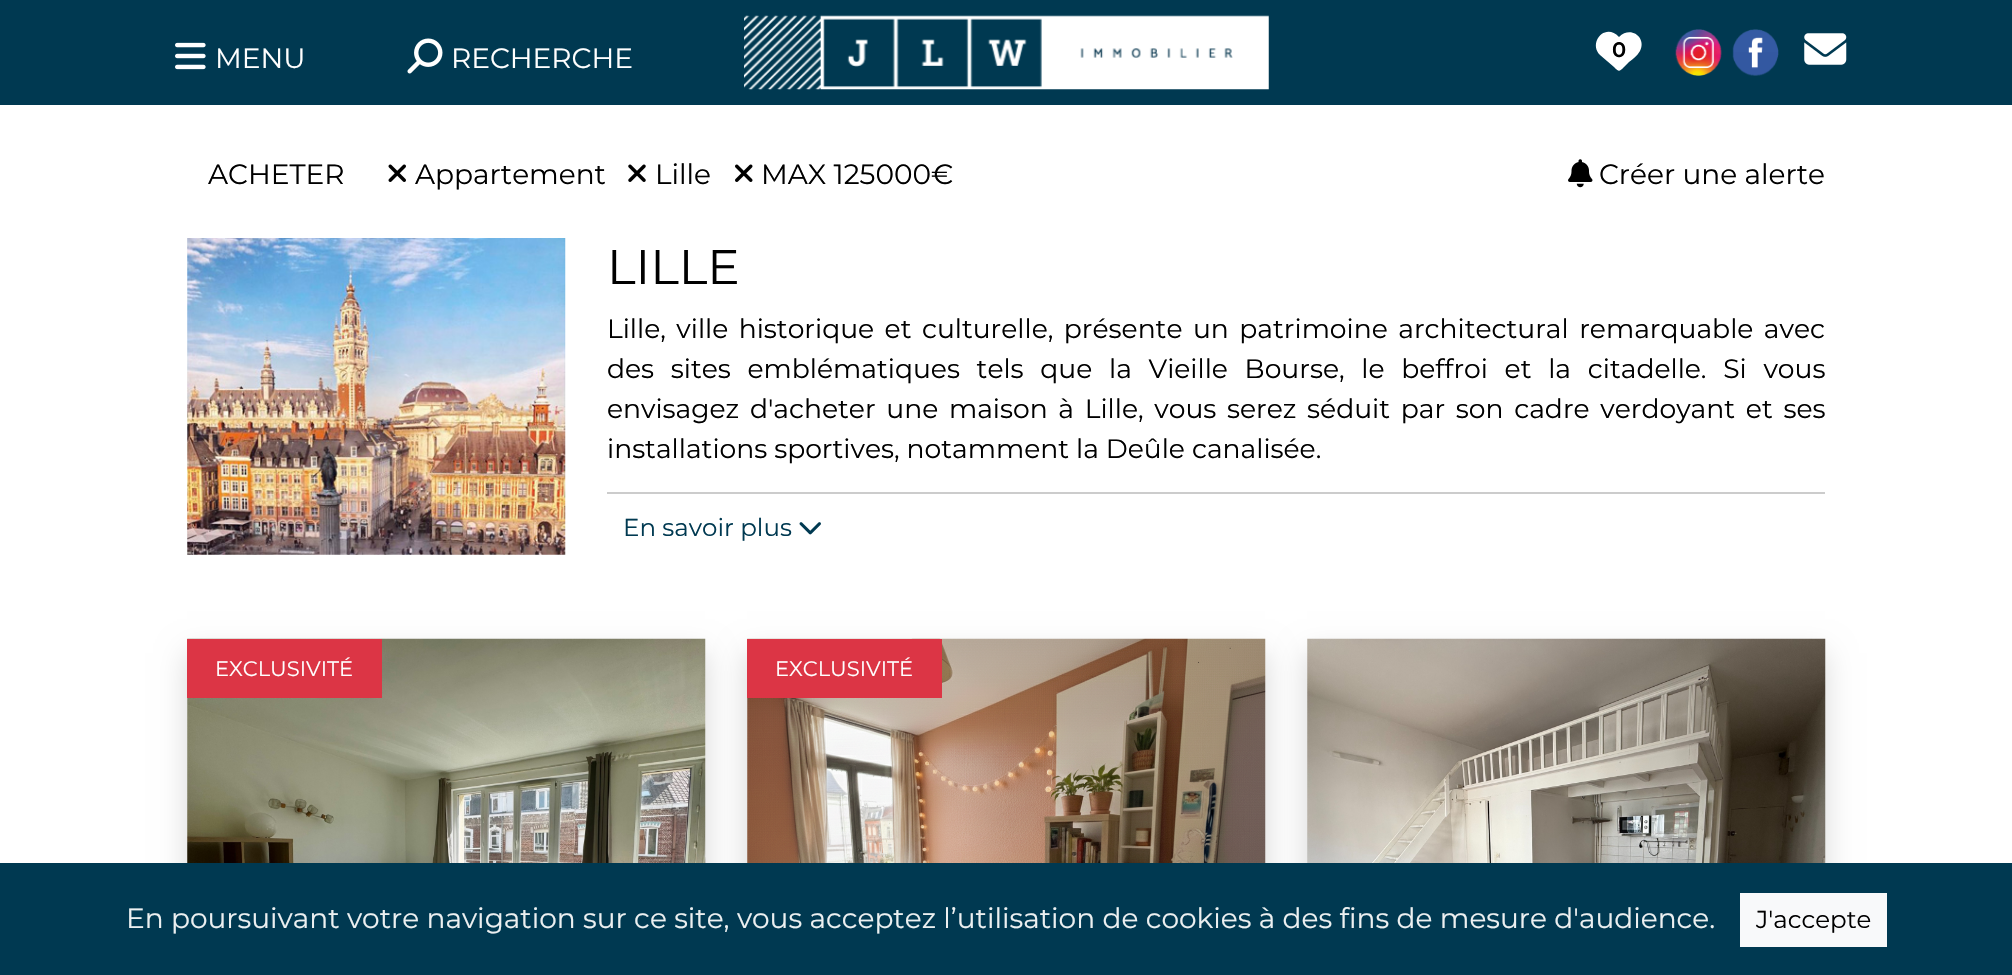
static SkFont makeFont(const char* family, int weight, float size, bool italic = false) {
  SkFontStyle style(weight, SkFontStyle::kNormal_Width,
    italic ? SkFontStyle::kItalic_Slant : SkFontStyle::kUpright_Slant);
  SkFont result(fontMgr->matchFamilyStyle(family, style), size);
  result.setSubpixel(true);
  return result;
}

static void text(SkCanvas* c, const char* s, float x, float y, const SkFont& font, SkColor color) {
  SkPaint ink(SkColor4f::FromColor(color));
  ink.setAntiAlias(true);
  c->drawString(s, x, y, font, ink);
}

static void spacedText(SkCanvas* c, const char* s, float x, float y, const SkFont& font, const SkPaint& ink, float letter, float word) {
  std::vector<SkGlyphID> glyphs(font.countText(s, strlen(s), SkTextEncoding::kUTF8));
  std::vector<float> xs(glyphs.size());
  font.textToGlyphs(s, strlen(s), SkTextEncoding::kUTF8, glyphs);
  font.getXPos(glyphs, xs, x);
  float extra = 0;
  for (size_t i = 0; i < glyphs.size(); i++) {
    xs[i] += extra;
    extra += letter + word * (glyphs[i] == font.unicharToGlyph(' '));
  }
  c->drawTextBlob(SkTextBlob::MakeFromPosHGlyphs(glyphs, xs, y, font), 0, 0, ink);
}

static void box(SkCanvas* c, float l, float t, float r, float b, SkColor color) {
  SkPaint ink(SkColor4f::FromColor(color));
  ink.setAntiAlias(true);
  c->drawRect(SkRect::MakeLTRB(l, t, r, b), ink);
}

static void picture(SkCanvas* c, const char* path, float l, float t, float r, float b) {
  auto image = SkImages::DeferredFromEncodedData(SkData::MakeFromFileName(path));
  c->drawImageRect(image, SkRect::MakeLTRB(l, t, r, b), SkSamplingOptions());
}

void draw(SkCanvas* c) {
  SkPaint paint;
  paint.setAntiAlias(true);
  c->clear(0xffffffff);
  box(c, 0, 0, 2012, 105, 0xff003951);
  picture(c, "img_01.png", 175, 42, 206, 70);
  SkFont face1 = makeFont("Montserrat", 400, 28);
  text(c, "MENU", 215, 68, face1, 0xffffffff);
  picture(c, "img_02.png", 407, 38, 443, 74);
  text(c, "RECHERCHE", 451, 68, face1, 0xffffffff);
  picture(c, "img_03.png", 744, 15, 1269, 90);
  paint.setColor(0xffffffff);
  c->drawPath(SkPathBuilder().moveTo(1600, 55).lineTo(1614, 67).cubicTo(1619, 72, 1619, 72, 1624, 67).lineTo(1629, 62).cubicTo(1633, 59, 1637, 56, 1640, 51).cubicTo(1647, 38, 1631, 25, 1619, 37).cubicTo(1605, 22, 1588, 43, 1600, 55).close().detach(), paint);
  SkFont face2 = makeFont("Montserrat", 600, 21);
  text(c, "0", 1612, 57, face2, 0xff000000);
  picture(c, "img_04.png", 1675, 29, 1722, 76);
  picture(c, "img_05.png", 1732, 29, 1779, 76);
  picture(c, "img_06.png", 1804, 33, 1847, 65);
  text(c, "ACHETER", 208, 184, face1, 0xff000000);
  picture(c, "img_07.png", 388, 164, 406, 182);
  text(c, "Appartement", 415, 184, face1, 0xff000000);
  picture(c, "img_08.png", 628, 164, 646, 182);
  text(c, "Lille", 655, 184, face1, 0xff000000);
  picture(c, "img_09.png", 735, 164, 753, 182);
  text(c, "MAX 125000€", 761, 184, face1, 0xff000000);
  picture(c, "img_10.png", 1568, 159, 1593, 188);
  text(c, "Créer une alerte", 1599, 184, face1, 0xff000000);
  picture(c, "img_11.png", 187, 238, 566, 555);
  SkFont face3 = makeFont("Montserrat", 400, 48.5f);
  text(c, "LILLE", 607, 284, face3, 0xff000000);
  box(c, 607, 492, 1825, 494, 0xffcccccc);
  SkFont face4 = makeFont("Montserrat", 400, 26.6f);
  paint.setColor(0xff000000);
  spacedText(c, "Lille, ville historique et culturelle, présente un patrimoine architectural remarquable avec", 607, 338, face4, paint, 0, 3.5f);
  spacedText(c, "des sites emblématiques tels que la Vieille Bourse, le beffroi et la citadelle. Si vous", 607, 378, face4, paint, 0, 9.75f);
  spacedText(c, "envisagez d'acheter une maison à Lille, vous serez séduit par son cadre verdoyant et ses", 607, 418, face4, paint, 0, 3.75f);
  text(c, "installations sportives, notamment la Deûle canalisée.", 607, 458, face4, 0xff000000);
  SkFont face5 = makeFont("Montserrat", 400, 24.5f);
  text(c, "En savoir plus", 623, 536, face5, 0xff003951);
  picture(c, "img_12.png", 799, 522, 821, 535);
  paint.setColor(0x26000000);
  paint.setMaskFilter(SkMaskFilter::MakeBlur(kNormal_SkBlurStyle, 14));
  c->drawRect(SkRect::MakeLTRB(187, 653, 705, 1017), paint);
  paint.setMaskFilter(nullptr);
  paint.setMaskFilter(SkMaskFilter::MakeBlur(kNormal_SkBlurStyle, 14));
  c->drawRect(SkRect::MakeLTRB(747, 653, 1265, 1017), paint);
  paint.setMaskFilter(nullptr);
  picture(c, "img_13.png", 187, 638, 706, 863);
  box(c, 187, 639, 382, 698, 0xffdc3545);
  SkFont face6 = makeFont("Montserrat", 400, 21);
  text(c, "EXCLUSIVITÉ", 215, 676, face6, 0xffffffff);
  paint.setMaskFilter(SkMaskFilter::MakeBlur(kNormal_SkBlurStyle, 14));
  c->drawRect(SkRect::MakeLTRB(1307, 653, 1825, 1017), paint);
  paint.setMaskFilter(nullptr);
  picture(c, "img_14.png", 747, 638, 1266, 863);
  box(c, 747, 639, 942, 698, 0xffdc3545);
  text(c, "EXCLUSIVITÉ", 775, 676, face6, 0xffffffff);
  picture(c, "img_15.png", 1307, 638, 1826, 863);
  box(c, 0, 863, 2012, 975, 0xff003951);
  text(c, "En poursuivant votre navigation sur ce site, vous acceptez l’utilisation de cookies à des fins de mesure d'audience.", 126, 928, face1, 0xffecf0f1);
  box(c, 1740, 893, 1887, 947, 0xfff8f9fa);
  text(c, "J'accepte", 1756, 928, face5, 0xff000000);
}
